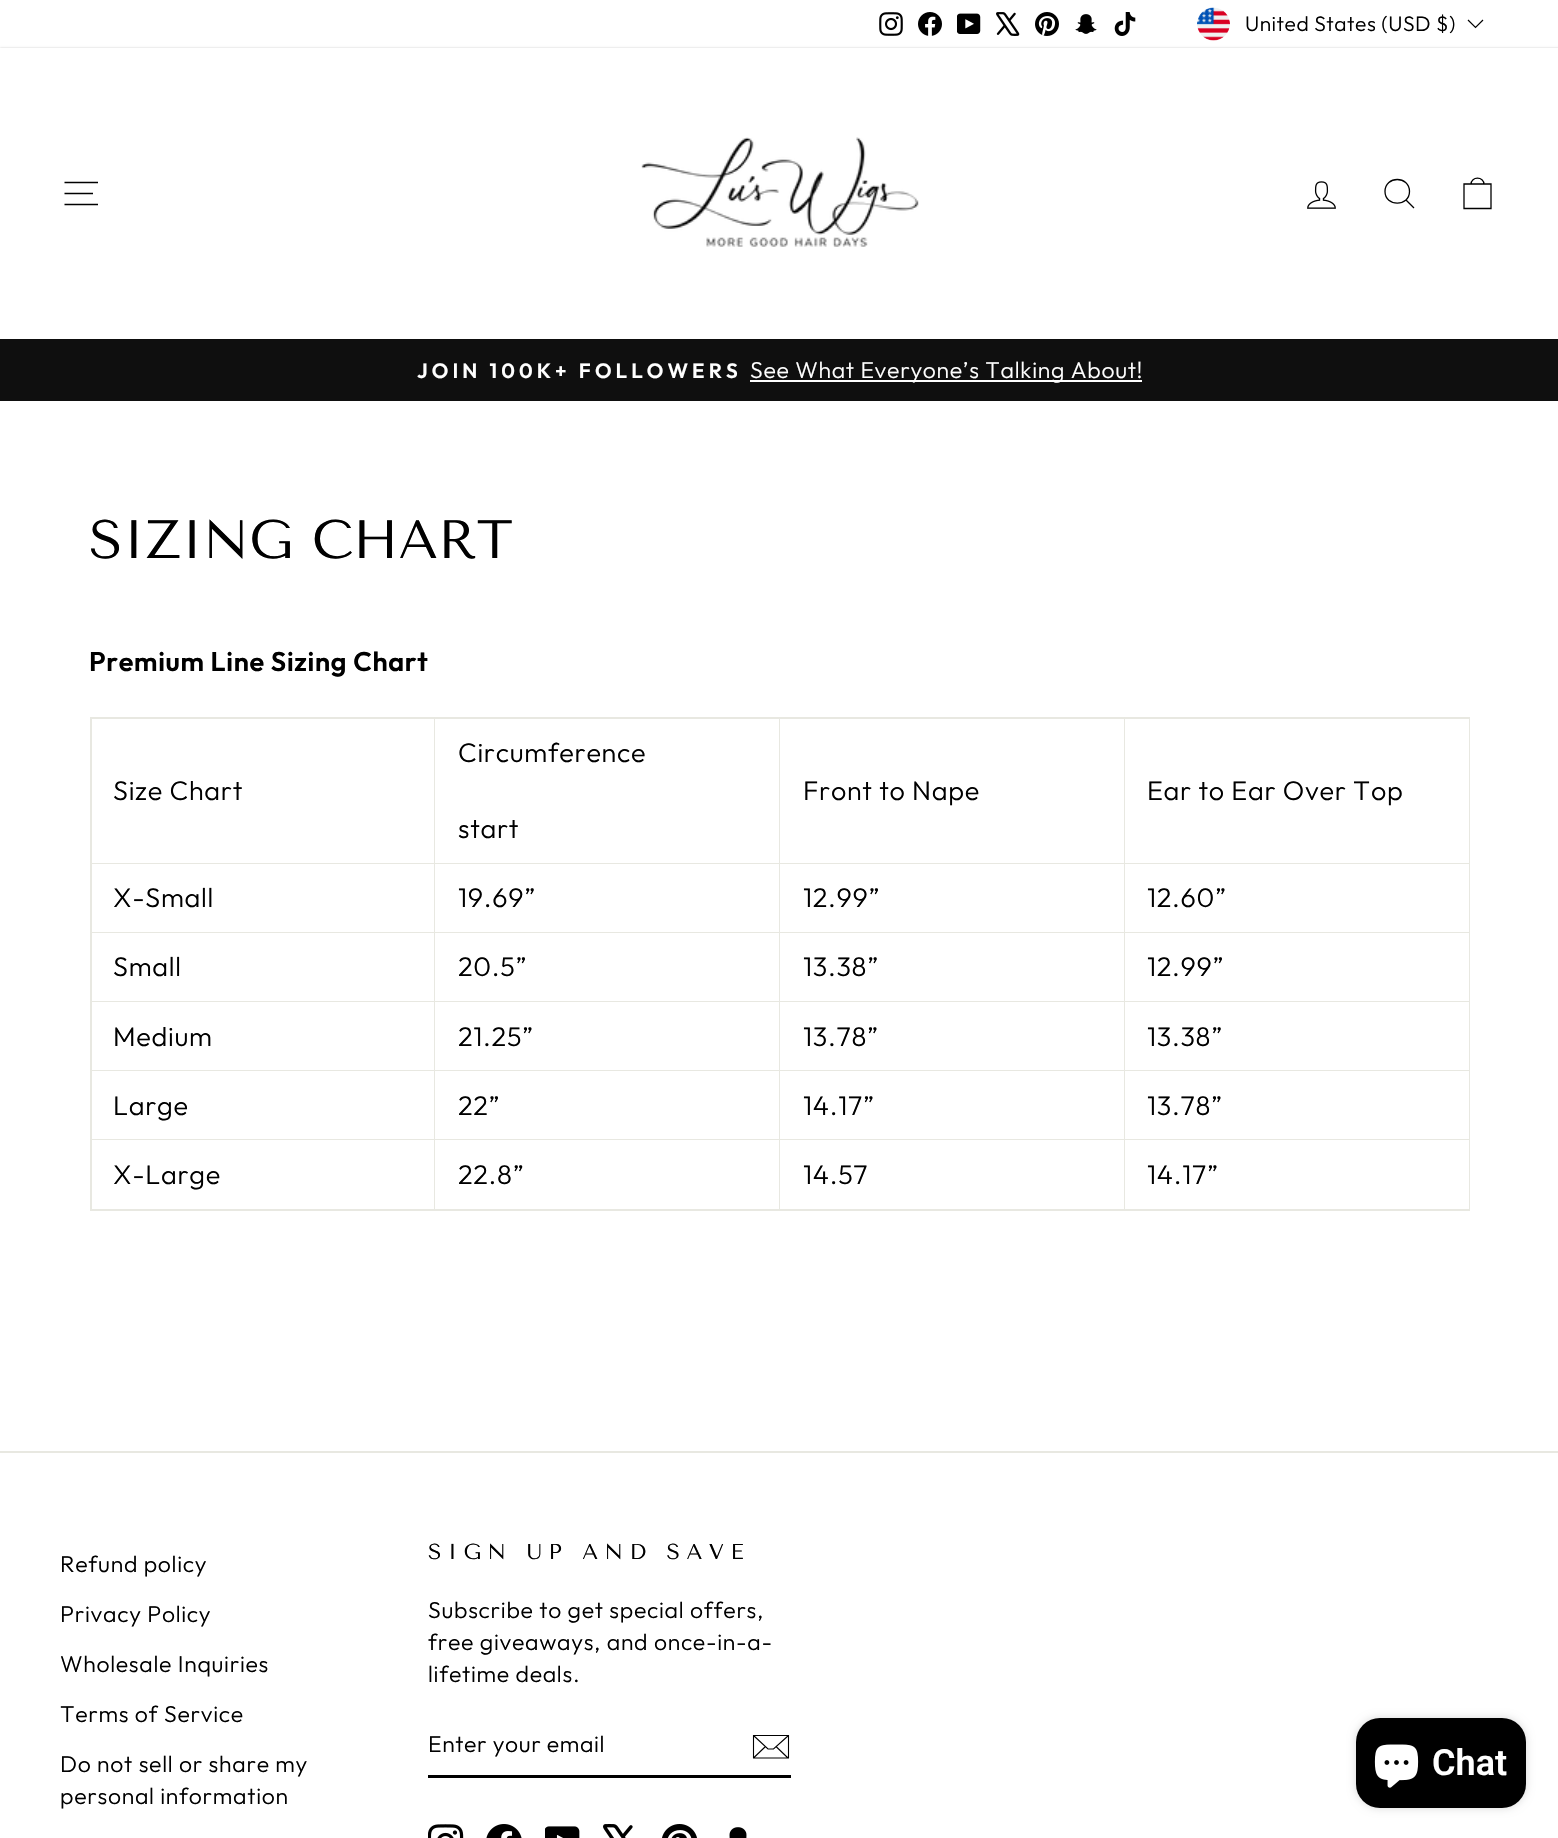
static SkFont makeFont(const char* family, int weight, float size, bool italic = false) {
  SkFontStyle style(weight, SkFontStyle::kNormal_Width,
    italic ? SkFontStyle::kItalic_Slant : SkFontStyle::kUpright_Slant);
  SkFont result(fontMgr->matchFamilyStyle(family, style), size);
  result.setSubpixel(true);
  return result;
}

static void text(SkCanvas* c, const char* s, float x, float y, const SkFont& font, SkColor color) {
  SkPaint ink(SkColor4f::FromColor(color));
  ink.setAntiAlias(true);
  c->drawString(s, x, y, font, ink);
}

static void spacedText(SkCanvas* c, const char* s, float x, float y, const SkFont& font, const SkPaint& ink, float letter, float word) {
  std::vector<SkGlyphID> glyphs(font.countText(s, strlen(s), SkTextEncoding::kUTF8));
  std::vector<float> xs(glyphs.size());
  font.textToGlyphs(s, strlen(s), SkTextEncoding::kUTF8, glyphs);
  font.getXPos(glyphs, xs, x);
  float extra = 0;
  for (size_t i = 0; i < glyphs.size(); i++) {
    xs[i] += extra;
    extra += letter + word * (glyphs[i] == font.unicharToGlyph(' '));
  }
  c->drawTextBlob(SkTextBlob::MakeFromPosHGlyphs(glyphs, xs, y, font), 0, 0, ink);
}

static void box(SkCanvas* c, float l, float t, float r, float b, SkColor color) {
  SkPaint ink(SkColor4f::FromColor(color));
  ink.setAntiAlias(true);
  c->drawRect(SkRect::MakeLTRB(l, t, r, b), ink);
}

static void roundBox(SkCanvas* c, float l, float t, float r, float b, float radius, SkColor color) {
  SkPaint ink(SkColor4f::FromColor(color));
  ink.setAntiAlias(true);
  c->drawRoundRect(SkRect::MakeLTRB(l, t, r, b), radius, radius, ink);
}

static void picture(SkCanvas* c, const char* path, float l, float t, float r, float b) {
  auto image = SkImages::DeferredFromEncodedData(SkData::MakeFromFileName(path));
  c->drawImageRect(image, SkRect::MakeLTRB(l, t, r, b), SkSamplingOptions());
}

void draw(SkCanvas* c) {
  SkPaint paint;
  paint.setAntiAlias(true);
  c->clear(0xffffffff);
  picture(c, "img_01.png", 879, 12, 903, 36);
  picture(c, "img_02.png", 918, 12, 942, 36);
  picture(c, "img_03.png", 957, 13, 981, 34);
  picture(c, "img_04.png", 996, 12, 1020, 36);
  picture(c, "img_05.png", 1035, 12, 1059, 36);
  picture(c, "img_06.png", 1075, 14, 1097, 34);
  picture(c, "img_07.png", 1114, 12, 1136, 36);
  picture(c, "img_08.png", 1197, 7, 1230, 41);
  SkFont face1 = makeFont("Outfit", 300, 21);
  paint.setColor(0xff000000);
  spacedText(c, "United States (USD $)", 1245, 31, face1, paint, 0.5f, 0);
  paint.setStyle(SkPaint::kStroke_Style);
  paint.setStrokeWidth(1.2f);
  c->drawPath(SkPathBuilder().moveTo(1468, 20).lineTo(1475.5f, 27.5f).lineTo(1483, 20).detach(), paint);
  box(c, 0, 339, 1558, 401, 0xff0f0f0f);
  c->save();
  c->clipPath(SkPathBuilder(SkPathFillType::kEvenOdd).moveTo(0, 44).lineTo(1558, 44).lineTo(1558, 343).lineTo(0, 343).close().moveTo(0, 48).lineTo(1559, 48).lineTo(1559, 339).lineTo(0, 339).close().detach(), true);
  paint.setStyle(SkPaint::kFill_Style);
  paint.setColor(0x33000000);
  paint.setMaskFilter(SkMaskFilter::MakeBlur(kNormal_SkBlurStyle, 1));
  c->drawRect(SkRect::MakeLTRB(0, 48, 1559, 339), paint);
  paint.setMaskFilter(nullptr);
  c->restore();
  paint.setStyle(SkPaint::kStroke_Style);
  paint.setStrokeWidth(1.3f);
  paint.setColor(0xff000000);
  c->drawPath(SkPathBuilder().moveTo(64.5f, 182.5f).lineTo(98, 182.5f).moveTo(64.5f, 193.5f).lineTo(93, 193.5f).moveTo(64.5f, 204.5f).lineTo(98, 204.5f).detach(), paint);
  picture(c, "img_09.png", 641, 137, 919, 247);
  picture(c, "img_10.png", 1307, 181, 1336, 209);
  c->drawPath(SkPathBuilder().moveTo(1409.5f, 191.5f).cubicTo(1409.5f, 207, 1385, 207, 1385, 191.5f).cubicTo(1385, 175.5f, 1409.5f, 175.5f, 1409.5f, 191.5f).close().moveTo(1414, 208).lineTo(1406, 200).detach(), paint);
  c->drawPath(SkPathBuilder().moveTo(1464, 184).lineTo(1491, 184).lineTo(1491, 208.5f).lineTo(1464, 208.5f).close().moveTo(1471, 184.5f).cubicTo(1471, 176, 1484, 176, 1484, 184.5f).detach(), paint);
  SkFont face2 = makeFont("Outfit", 600, 20.7f);
  paint.setStyle(SkPaint::kFill_Style);
  paint.setColor(0xffffffff);
  spacedText(c, "JOIN 100K+ FOLLOWERS", 417, 378, face2, paint, 4.1f, 0);
  box(c, 750, 380, 1142, 382, 0xffffffff);
  SkFont face3 = makeFont("Outfit", 300, 23);
  spacedText(c, "See What Everyone’s Talking About!", 750, 378, face3, paint, 0.7f, 0);
  SkFont face4 = makeFont("Tenor Sans", 400, 54);
  text(c, "SIZING CHART", 89, 558, face4, 0xff000000);
  SkFont face5 = makeFont("Outfit", 600, 27);
  paint.setColor(0xff000000);
  spacedText(c, "Premium Line Sizing Chart", 89, 671, face5, paint, 0.7f, 0);
  box(c, 90, 717, 1470, 1211, 0xffe8e8e1);
  box(c, 92, 719, 434, 863, 0xffffffff);
  SkFont face6 = makeFont("Outfit", 300, 27);
  spacedText(c, "Size Chart", 113, 800, face6, paint, 0.7f, 0);
  box(c, 435, 719, 779, 863, 0xffffffff);
  spacedText(c, "Circumference", 458, 762, face6, paint, 0.7f, 0);
  spacedText(c, "start", 458, 838, face6, paint, 0.7f, 0);
  box(c, 780, 719, 1124, 863, 0xffffffff);
  spacedText(c, "Front to Nape", 803, 800, face6, paint, 0.7f, 0);
  box(c, 1125, 719, 1469, 863, 0xffffffff);
  spacedText(c, "Ear to Ear Over Top", 1147, 800, face6, paint, 0.7f, 0);
  box(c, 92, 864, 434, 932, 0xffffffff);
  spacedText(c, "X-Small", 113, 907, face6, paint, 0.7f, 0);
  box(c, 435, 864, 779, 932, 0xffffffff);
  spacedText(c, "19.69”", 458, 907, face6, paint, 0.7f, 0);
  box(c, 780, 864, 1124, 932, 0xffffffff);
  spacedText(c, "12.99”", 803, 907, face6, paint, 0.7f, 0);
  box(c, 1125, 864, 1469, 932, 0xffffffff);
  spacedText(c, "12.60”", 1147, 907, face6, paint, 0.7f, 0);
  box(c, 92, 933, 434, 1001, 0xffffffff);
  spacedText(c, "Small", 113, 976, face6, paint, 0.7f, 0);
  box(c, 435, 933, 779, 1001, 0xffffffff);
  spacedText(c, "20.5”", 458, 976, face6, paint, 0.7f, 0);
  box(c, 780, 933, 1124, 1001, 0xffffffff);
  spacedText(c, "13.38”", 803, 976, face6, paint, 0.7f, 0);
  box(c, 1125, 933, 1469, 1001, 0xffffffff);
  spacedText(c, "12.99”", 1147, 976, face6, paint, 0.7f, 0);
  box(c, 92, 1002, 434, 1070, 0xffffffff);
  spacedText(c, "Medium", 113, 1046, face6, paint, 0.7f, 0);
  box(c, 435, 1002, 779, 1070, 0xffffffff);
  spacedText(c, "21.25”", 458, 1046, face6, paint, 0.7f, 0);
  box(c, 780, 1002, 1124, 1070, 0xffffffff);
  spacedText(c, "13.78”", 803, 1046, face6, paint, 0.7f, 0);
  box(c, 1125, 1002, 1469, 1070, 0xffffffff);
  spacedText(c, "13.38”", 1147, 1046, face6, paint, 0.7f, 0);
  box(c, 92, 1071, 434, 1139, 0xffffffff);
  spacedText(c, "Large", 113, 1115, face6, paint, 0.7f, 0);
  box(c, 435, 1071, 779, 1139, 0xffffffff);
  spacedText(c, "22”", 458, 1115, face6, paint, 0.7f, 0);
  box(c, 780, 1071, 1124, 1139, 0xffffffff);
  spacedText(c, "14.17”", 803, 1115, face6, paint, 0.7f, 0);
  box(c, 1125, 1071, 1469, 1139, 0xffffffff);
  spacedText(c, "13.78”", 1147, 1115, face6, paint, 0.7f, 0);
  box(c, 92, 1140, 434, 1209, 0xffffffff);
  spacedText(c, "X-Large", 113, 1184, face6, paint, 0.7f, 0);
  box(c, 435, 1140, 779, 1209, 0xffffffff);
  spacedText(c, "22.8”", 458, 1184, face6, paint, 0.7f, 0);
  box(c, 780, 1140, 1124, 1209, 0xffffffff);
  spacedText(c, "14.57", 803, 1184, face6, paint, 0.7f, 0);
  box(c, 1125, 1140, 1469, 1209, 0xffffffff);
  spacedText(c, "14.17”", 1147, 1184, face6, paint, 0.7f, 0);
  box(c, 0, 1451, 1558, 1453, 0xffe8e8e1);
  spacedText(c, "Refund policy", 60, 1572, face3, paint, 0.7f, 0);
  spacedText(c, "Privacy Policy", 60, 1622, face3, paint, 0.7f, 0);
  spacedText(c, "Wholesale Inquiries", 60, 1672, face3, paint, 0.7f, 0);
  spacedText(c, "Terms of Service", 60, 1722, face3, paint, 0.7f, 0);
  spacedText(c, "Do not sell or share my", 60, 1772, face3, paint, 0.7f, 0);
  spacedText(c, "personal information", 60, 1804, face3, paint, 0.7f, 0);
  SkFont face7 = makeFont("Tenor Sans", 400, 21.6f);
  spacedText(c, "SIGN UP AND SAVE", 428, 1559, face7, paint, 6.5f, 0);
  spacedText(c, "Subscribe to get special offers,", 428, 1618, face3, paint, 0.7f, 0);
  spacedText(c, "free giveaways, and once-in-a-", 428, 1650, face3, paint, 0.7f, 0);
  spacedText(c, "lifetime deals.", 428, 1682, face3, paint, 0.7f, 0);
  box(c, 428, 1775, 791, 1778, 0xff000000);
  spacedText(c, "Enter your email", 428, 1752, face3, paint, 0.6f, 0);
  paint.setStyle(SkPaint::kStroke_Style);
  paint.setStrokeWidth(1.1f);
  c->drawPath(SkPathBuilder().moveTo(788.5f, 1758).lineTo(753.5f, 1758).lineTo(753.5f, 1735.5f).lineTo(788.5f, 1735.5f).close().moveTo(753.5f, 1735.5f).lineTo(768, 1749).lineTo(773.5f, 1749).lineTo(788.5f, 1735.5f).moveTo(765.5f, 1746.5f).lineTo(754, 1757.5f).moveTo(788, 1758).lineTo(776, 1746.5f).detach(), paint);
  picture(c, "img_11.png", 428, 1824, 464, 1838);
  picture(c, "img_12.png", 486, 1824, 522, 1838);
  picture(c, "img_13.png", 545, 1826, 580, 1838);
  picture(c, "img_14.png", 603, 1824, 633, 1838);
  picture(c, "img_15.png", 662, 1824, 697, 1838);
  picture(c, "img_16.png", 729, 1827, 747, 1838);
  paint.setStyle(SkPaint::kFill_Style);
  paint.setColor(0x26000000);
  paint.setMaskFilter(SkMaskFilter::MakeBlur(kNormal_SkBlurStyle, 4));
  c->drawRoundRect(SkRect::MakeLTRB(1356, 1718, 1526, 1808), 24, 24, paint);
  paint.setMaskFilter(nullptr);
  roundBox(c, 1356, 1718, 1526, 1808, 24, 0xff000000);
  picture(c, "img_17.png", 1374, 1744, 1419, 1788);
  SkFont face8 = makeFont("Roboto", 600, 36);
  text(c, "Chat", 1432, 1775, face8, 0xffffffff);
}
